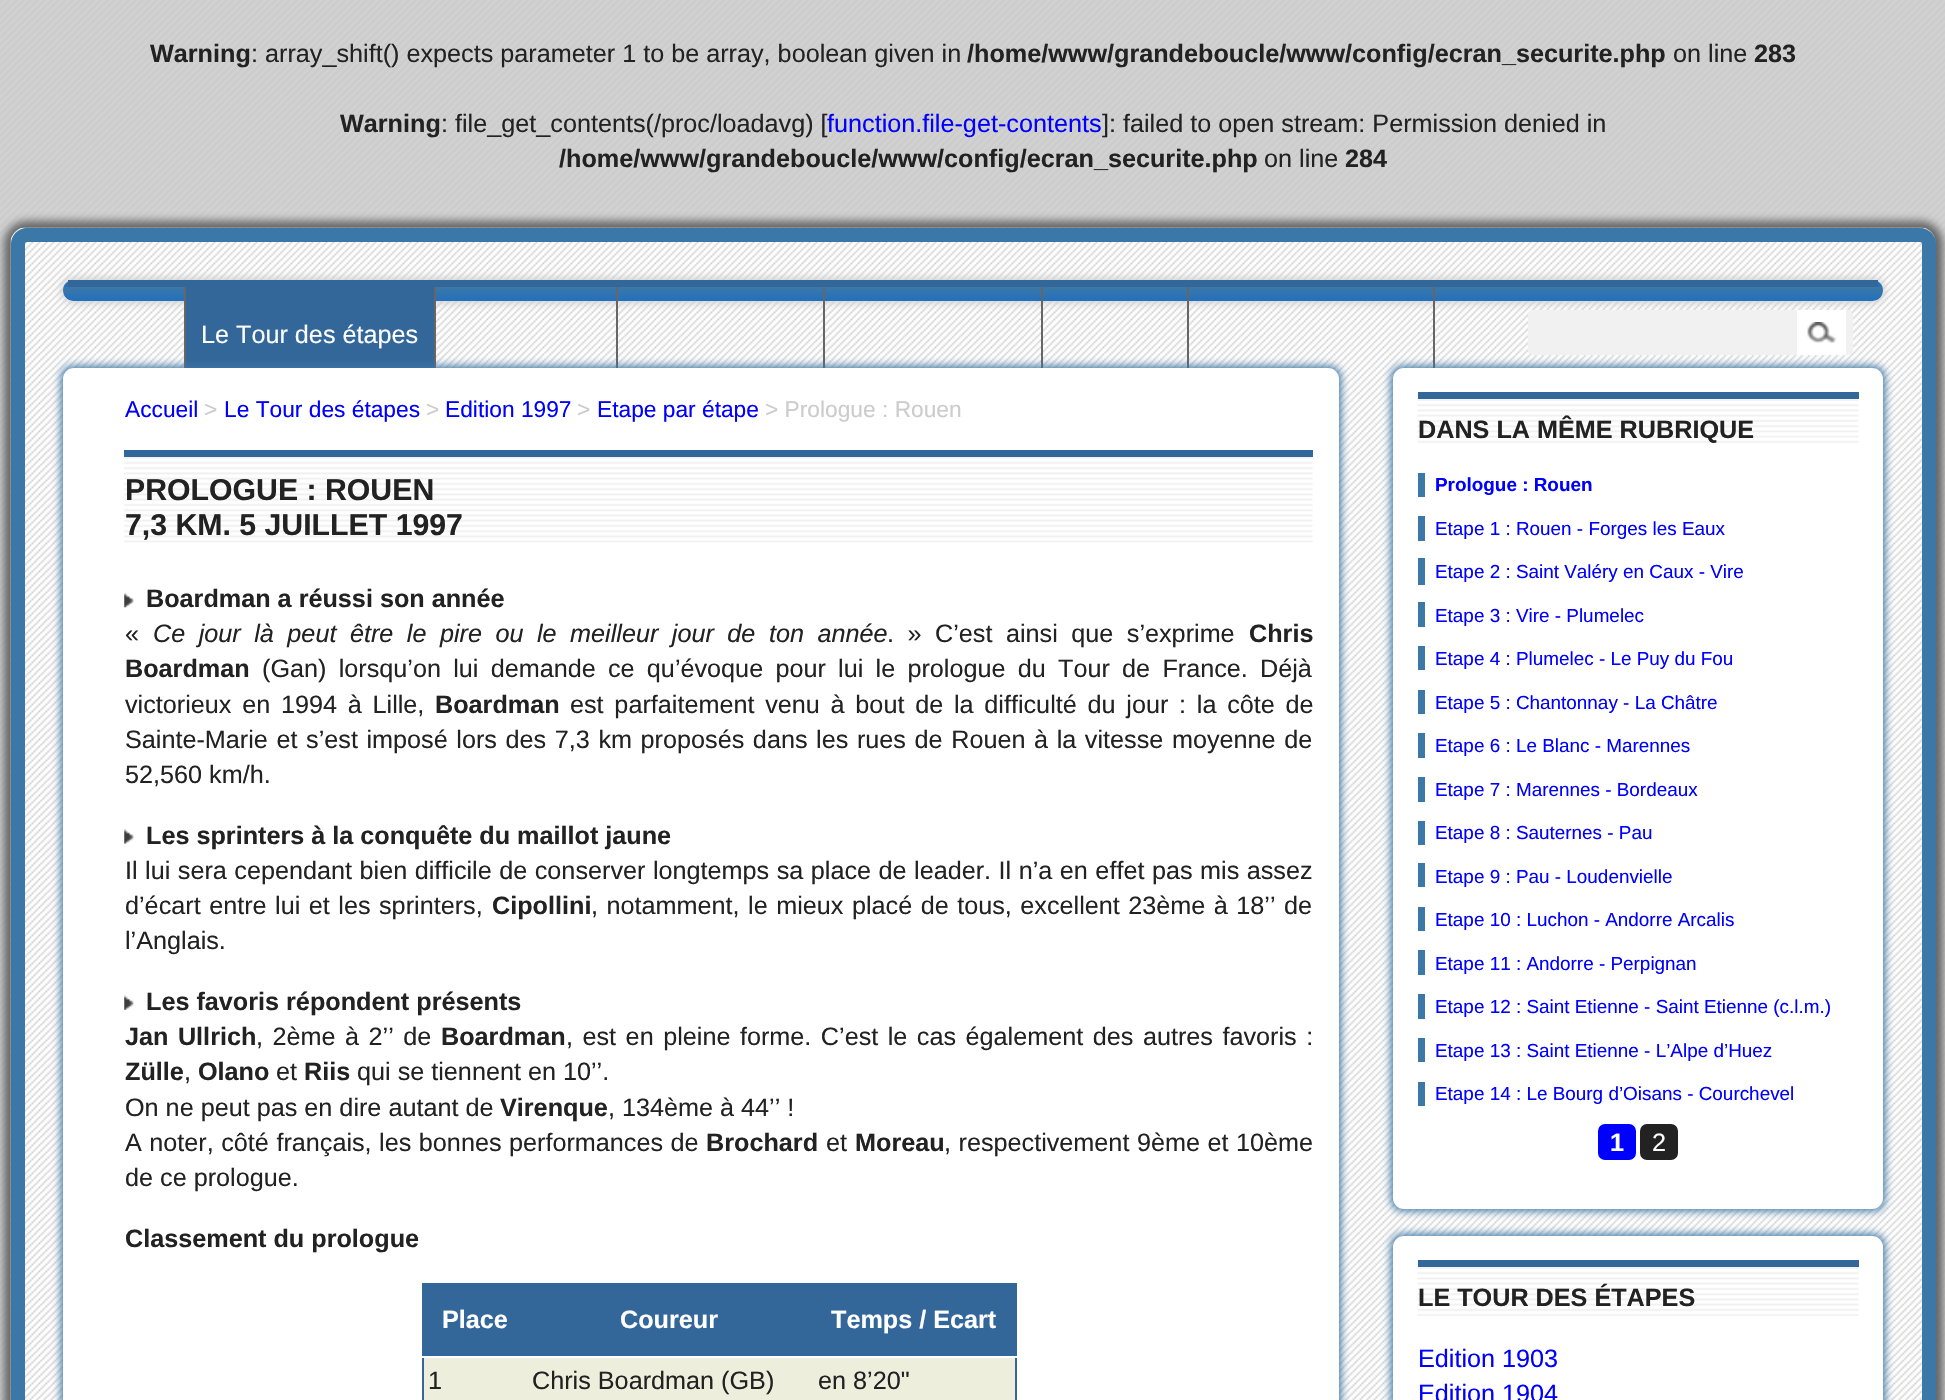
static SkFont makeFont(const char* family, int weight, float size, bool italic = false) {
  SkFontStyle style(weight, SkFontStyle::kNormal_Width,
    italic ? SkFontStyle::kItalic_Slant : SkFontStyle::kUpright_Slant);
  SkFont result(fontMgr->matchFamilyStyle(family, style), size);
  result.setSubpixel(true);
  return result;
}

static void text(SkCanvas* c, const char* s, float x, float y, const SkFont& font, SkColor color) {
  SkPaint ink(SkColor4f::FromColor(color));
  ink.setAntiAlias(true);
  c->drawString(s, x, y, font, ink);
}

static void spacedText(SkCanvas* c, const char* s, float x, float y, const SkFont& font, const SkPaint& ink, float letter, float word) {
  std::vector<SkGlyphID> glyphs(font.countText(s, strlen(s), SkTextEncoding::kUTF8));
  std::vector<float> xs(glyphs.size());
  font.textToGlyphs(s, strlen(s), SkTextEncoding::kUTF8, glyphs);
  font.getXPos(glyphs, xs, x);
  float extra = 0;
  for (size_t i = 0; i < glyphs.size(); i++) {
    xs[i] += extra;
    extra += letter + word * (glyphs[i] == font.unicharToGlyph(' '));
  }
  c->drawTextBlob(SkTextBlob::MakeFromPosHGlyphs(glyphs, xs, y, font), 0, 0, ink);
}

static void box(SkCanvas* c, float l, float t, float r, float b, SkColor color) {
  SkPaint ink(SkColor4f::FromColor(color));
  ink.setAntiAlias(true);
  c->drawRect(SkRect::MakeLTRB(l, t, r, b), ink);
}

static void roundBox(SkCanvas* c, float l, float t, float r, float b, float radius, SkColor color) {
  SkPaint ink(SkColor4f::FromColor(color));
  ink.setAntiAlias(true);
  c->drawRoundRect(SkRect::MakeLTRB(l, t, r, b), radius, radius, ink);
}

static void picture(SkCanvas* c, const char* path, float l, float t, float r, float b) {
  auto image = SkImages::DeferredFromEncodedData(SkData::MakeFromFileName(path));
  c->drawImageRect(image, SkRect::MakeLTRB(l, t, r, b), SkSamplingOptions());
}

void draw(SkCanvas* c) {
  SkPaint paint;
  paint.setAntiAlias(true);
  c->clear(0xffffffff);
  picture(c, "img_01.png", 0, 0, 1945, 1400);
  SkFont face1 = makeFont("Liberation Sans", 700, 25.2f);
  text(c, "Warning", 150, 62, face1, 0xff222222);
  SkFont face2 = makeFont("Liberation Sans", 400, 25.2f);
  text(c, ": array_shift() expects parameter 1 to be array, boolean given in", 251, 62, face2, 0xff222222);
  text(c, "/home/www/grandeboucle/www/config/ecran_securite.php", 967, 62, face1, 0xff222222);
  text(c, "on line", 1673, 62, face2, 0xff222222);
  text(c, "283", 1754, 62, face1, 0xff222222);
  text(c, "Warning", 340, 132, face1, 0xff222222);
  text(c, ": file_get_contents(/proc/loadavg) [", 441, 132, face2, 0xff222222);
  text(c, "function.file-get-contents", 827, 132, face2, 0xff0000ff);
  text(c, "]: failed to open stream: Permission denied in", 1102, 132, face2, 0xff222222);
  text(c, "/home/www/grandeboucle/www/config/ecran_securite.php", 559, 167, face1, 0xff222222);
  text(c, "on line", 1264, 167, face2, 0xff222222);
  text(c, "284", 1345, 167, face1, 0xff222222);
  paint.setColor(0xff656565);
  paint.setMaskFilter(SkMaskFilter::MakeBlur(kNormal_SkBlurStyle, 4.5f));
  c->drawRoundRect(SkRect::MakeLTRB(4, 221, 1943, 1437), 23, 23, paint);
  paint.setMaskFilter(nullptr);
  picture(c, "img_02.png", 10, 227, 1936, 1400);
  paint.setStyle(SkPaint::kStroke_Style);
  paint.setStrokeWidth(14);
  paint.setColor(0xff3c78a7);
  c->drawRoundRect(SkRect::MakeLTRB(18, 235, 1929, 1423), 9, 9, paint);
  paint.setStyle(SkPaint::kFill_Style);
  paint.setColor(0xffcfcfcf);
  paint.setMaskFilter(SkMaskFilter::MakeBlur(kNormal_SkBlurStyle, 4.5f));
  c->drawRoundRect(SkRect::MakeLTRB(61, 278, 1885, 303), 12.5f, 12.5f, paint);
  paint.setMaskFilter(nullptr);
  c->save();
  c->clipPath(SkPathBuilder().moveTo(73.5f, 280).lineTo(1872.5f, 280).cubicTo(1878.5f, 280, 1883, 284.5f, 1883, 290.5f).cubicTo(1883, 296.5f, 1878.5f, 301, 1872.5f, 301).lineTo(73.5f, 301).cubicTo(67.5f, 301, 63, 296.5f, 63, 290.5f).cubicTo(63, 284.5f, 67.5f, 280, 73.5f, 280).close().detach(), true);
  {
    const SkColor colors[] = {0xff3c78a7, 0xff2270be};
    const float stops[] = {0, 1};
    const SkPoint ends[] = {{973, 273}, {973, 287}};
    paint.setShader(SkGradientShader::MakeLinear(ends, colors, stops, 2, SkTileMode::kClamp));
    paint.setAlpha(255);
  }
  c->drawRect(SkRect::MakeLTRB(63, 281, 1883, 287), paint);
  {
    const SkColor colors[] = {0xff3c78a7, 0xff2270be};
    const float stops[] = {0, 1};
    const SkPoint ends[] = {{973, 287}, {973, 301}};
    paint.setShader(SkGradientShader::MakeLinear(ends, colors, stops, 2, SkTileMode::kClamp));
    paint.setAlpha(255);
  }
  c->drawPath(SkPathBuilder().moveTo(63, 287).lineTo(1883, 287).lineTo(1883, 290.5f).cubicTo(1883, 296.5f, 1878.5f, 301, 1872.5f, 301).lineTo(73.5f, 301).cubicTo(67.5f, 301, 63, 296.5f, 63, 290.5f).close().detach(), paint);
  c->restore();
  box(c, 68, 280, 1878, 287, 0xff336699);
  box(c, 184, 287, 186, 368, 0xff666666);
  box(c, 186, 287, 434, 368, 0xff336699);
  box(c, 434, 287, 436, 368, 0xff666666);
  text(c, "Le Tour des étapes", 201, 343, face2, 0xffffffff);
  box(c, 616, 287, 618, 368, 0xff666666);
  box(c, 823, 287, 825, 368, 0xff666666);
  box(c, 1041, 287, 1043, 368, 0xff666666);
  box(c, 1187, 287, 1189, 368, 0xff666666);
  box(c, 1433, 287, 1435, 368, 0xff666666);
  roundBox(c, 1528, 310, 1853, 355, 5, 0xfff1f1f1);
  paint.setShader(nullptr);
  paint.setColor(0xff3c78a7);
  paint.setMaskFilter(SkMaskFilter::MakeBlur(kNormal_SkBlurStyle, 4.5f));
  c->drawRoundRect(SkRect::MakeLTRB(1391, 366, 1885, 1211), 12, 12, paint);
  paint.setMaskFilter(nullptr);
  box(c, 1797, 310, 1846, 355, 0xffffffff);
  picture(c, "img_03.png", 1807, 322, 1837, 343);
  paint.setMaskFilter(SkMaskFilter::MakeBlur(kNormal_SkBlurStyle, 4.5f));
  c->drawRoundRect(SkRect::MakeLTRB(61, 366, 1341, 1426), 12, 12, paint);
  paint.setMaskFilter(nullptr);
  roundBox(c, 63, 368, 1339, 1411, 11, 0xffffffff);
  SkFont face3 = makeFont("Liberation Sans", 400, 22.75f);
  text(c, "Accueil", 125, 417, face3, 0xff0000ff);
  text(c, ">", 204, 417, face3, 0xffcccccc);
  text(c, "Le Tour des étapes", 224, 417, face3, 0xff0000ff);
  text(c, ">", 426, 417, face3, 0xffcccccc);
  text(c, "Edition 1997", 445, 417, face3, 0xff0000ff);
  text(c, ">", 577, 417, face3, 0xffcccccc);
  text(c, "Etape par étape", 597, 417, face3, 0xff0000ff);
  text(c, "> Prologue : Rouen", 765, 417, face3, 0xffcccccc);
  picture(c, "img_04.png", 124, 457, 1313, 543);
  box(c, 124, 450, 1313, 457, 0xff336699);
  SkFont face4 = makeFont("Liberation Sans", 700, 30.25f);
  text(c, "PROLOGUE : ROUEN", 125, 500, face4, 0xff222222);
  text(c, "7,3 KM. 5 JUILLET 1997", 125, 535, face4, 0xff222222);
  picture(c, "img_05.png", 124, 593, 134, 608);
  text(c, "Boardman a réussi son année", 146, 607, face1, 0xff222222);
  text(c, "«", 125, 642, face2, 0xff222222);
  SkFont face5 = makeFont("Liberation Sans", 400, 25.2f, true);
  paint.setColor(0xff222222);
  spacedText(c, "Ce jour là peut être le pire ou le meilleur jour de ton année", 153, 642, face5, paint, 0, 6.5f);
  spacedText(c, ". » C’est ainsi que s’exprime", 887, 642, face2, paint, 0, 6.5f);
  text(c, "Chris", 1249, 642, face1, 0xff222222);
  text(c, "Boardman", 125, 677, face1, 0xff222222);
  spacedText(c, "(Gan) lorsqu’on lui demande ce qu’évoque pour lui le prologue du Tour de France. Déjà", 262, 677, face2, paint, 0, 5.25f);
  spacedText(c, "victorieux en 1994 à Lille,", 125, 713, face2, paint, 0, 3.75f);
  text(c, "Boardman", 435, 713, face1, 0xff222222);
  spacedText(c, "est parfaitement venu à bout de la difficulté du jour : la côte de", 570, 713, face2, paint, 0, 3.75f);
  spacedText(c, "Sainte-Marie et s’est imposé lors des 7,3 km proposés dans les rues de Rouen à la vitesse moyenne de", 125, 748, face2, paint, 0, 1.6f);
  text(c, "52,560 km/h.", 125, 783, face2, 0xff222222);
  picture(c, "img_06.png", 124, 829, 134, 844);
  text(c, "Les sprinters à la conquête du maillot jaune", 146, 844, face1, 0xff222222);
  spacedText(c, "Il lui sera cependant bien difficile de conserver longtemps sa place de leader. Il n’a en effet pas mis assez", 125, 879, face2, paint, 0, 0.5f);
  spacedText(c, "d’écart entre lui et les sprinters,", 125, 914, face2, paint, 0, 1.5f);
  text(c, "Cipollini", 492, 914, face1, 0xff222222);
  spacedText(c, ", notamment, le mieux placé de tous, excellent 23ème à 18’’ de", 591, 914, face2, paint, 0, 1.5f);
  text(c, "l’Anglais.", 125, 949, face2, 0xff222222);
  picture(c, "img_07.png", 124, 995, 134, 1010);
  text(c, "Les favoris répondent présents", 146, 1010, face1, 0xff222222);
  spacedText(c, "Jan Ullrich", 125, 1045, face1, paint, 0, 2.5f);
  spacedText(c, ", 2ème à 2’’ de", 256, 1045, face2, paint, 0, 2.5f);
  text(c, "Boardman", 441, 1045, face1, 0xff222222);
  spacedText(c, ", est en pleine forme. C’est le cas également des autres favoris :", 566, 1045, face2, paint, 0, 2.5f);
  text(c, "Zülle", 125, 1080, face1, 0xff222222);
  text(c, ",", 184, 1080, face2, 0xff222222);
  text(c, "Olano", 198, 1080, face1, 0xff222222);
  text(c, "et", 276, 1080, face2, 0xff222222);
  text(c, "Riis", 304, 1080, face1, 0xff222222);
  text(c, "qui se tiennent en 10’’.", 357, 1080, face2, 0xff222222);
  text(c, "On ne peut pas en dire autant de", 125, 1116, face2, 0xff222222);
  text(c, "Virenque", 500, 1116, face1, 0xff222222);
  text(c, ", 134ème à 44’’ !", 608, 1116, face2, 0xff222222);
  spacedText(c, "A noter, côté français, les bonnes performances de", 125, 1151, face2, paint, 0, 0.5f);
  text(c, "Brochard", 706, 1151, face1, 0xff222222);
  text(c, "et", 826, 1151, face2, 0xff222222);
  text(c, "Moreau", 855, 1151, face1, 0xff222222);
  spacedText(c, ", respectivement 9ème et 10ème", 944, 1151, face2, paint, 0, 0.5f);
  text(c, "de ce prologue.", 125, 1186, face2, 0xff222222);
  text(c, "Classement du prologue", 125, 1247, face1, 0xff222222);
  box(c, 1015, 1281, 1017, 1400, 0xff336699);
  box(c, 422, 1281, 424, 1400, 0xff336699);
  box(c, 424, 1283, 1015, 1356, 0xff336699);
  box(c, 422, 1281, 424, 1283, 0xffffffff);
  box(c, 422, 1356, 424, 1358, 0xffffffff);
  text(c, "Place", 442, 1328, face1, 0xffffffff);
  text(c, "Coureur", 620, 1328, face1, 0xffffffff);
  box(c, 1015, 1281, 1017, 1283, 0xffffffff);
  box(c, 1015, 1356, 1017, 1358, 0xffffffff);
  text(c, "Temps / Ecart", 831, 1328, face1, 0xffffffff);
  box(c, 424, 1358, 1015, 1400, 0xffeeeedd);
  text(c, "1", 428, 1389, face2, 0xff222222);
  text(c, "Chris Boardman (GB)", 532, 1389, face2, 0xff222222);
  text(c, "en 8’20\"", 818, 1389, face2, 0xff222222);
  roundBox(c, 1393, 368, 1883, 1209, 11, 0xffffffff);
  picture(c, "img_08.png", 1417, 393, 1859, 443);
  box(c, 1418, 392, 1859, 399, 0xff336699);
  text(c, "DANS LA MÊME RUBRIQUE", 1418, 438, face1, 0xff222222);
  box(c, 1418, 473, 1425, 497, 0xff3c78a7);
  SkFont face6 = makeFont("Liberation Sans", 700, 18.9f);
  text(c, "Prologue : Rouen", 1435, 491, face6, 0xff0000ff);
  box(c, 1418, 516, 1425, 541, 0xff3c78a7);
  SkFont face7 = makeFont("Liberation Sans", 400, 18.9f);
  text(c, "Etape 1 : Rouen - Forges les Eaux", 1435, 535, face7, 0xff0000ff);
  box(c, 1418, 558, 1425, 585, 0xff3c78a7);
  text(c, "Etape 2 : Saint Valéry en Caux - Vire", 1435, 578, face7, 0xff0000ff);
  box(c, 1418, 602, 1425, 627, 0xff3c78a7);
  text(c, "Etape 3 : Vire - Plumelec", 1435, 622, face7, 0xff0000ff);
  box(c, 1418, 646, 1425, 670, 0xff3c78a7);
  text(c, "Etape 4 : Plumelec - Le Puy du Fou", 1435, 665, face7, 0xff0000ff);
  box(c, 1418, 690, 1425, 714, 0xff3c78a7);
  text(c, "Etape 5 : Chantonnay - La Châtre", 1435, 709, face7, 0xff0000ff);
  box(c, 1418, 733, 1425, 758, 0xff3c78a7);
  text(c, "Etape 6 : Le Blanc - Marennes", 1435, 752, face7, 0xff0000ff);
  box(c, 1418, 777, 1425, 802, 0xff3c78a7);
  text(c, "Etape 7 : Marennes - Bordeaux", 1435, 796, face7, 0xff0000ff);
  box(c, 1418, 821, 1425, 845, 0xff3c78a7);
  text(c, "Etape 8 : Sauternes - Pau", 1435, 839, face7, 0xff0000ff);
  box(c, 1418, 863, 1425, 887, 0xff3c78a7);
  text(c, "Etape 9 : Pau - Loudenvielle", 1435, 883, face7, 0xff0000ff);
  box(c, 1418, 907, 1425, 931, 0xff3c78a7);
  text(c, "Etape 10 : Luchon - Andorre Arcalis", 1435, 926, face7, 0xff0000ff);
  box(c, 1418, 950, 1425, 975, 0xff3c78a7);
  text(c, "Etape 11 : Andorre - Perpignan", 1435, 970, face7, 0xff0000ff);
  box(c, 1418, 994, 1425, 1019, 0xff3c78a7);
  text(c, "Etape 12 : Saint Etienne - Saint Etienne (c.l.m.)", 1435, 1013, face7, 0xff0000ff);
  box(c, 1418, 1038, 1425, 1062, 0xff3c78a7);
  text(c, "Etape 13 : Saint Etienne - L’Alpe d’Huez", 1435, 1057, face7, 0xff0000ff);
  box(c, 1418, 1082, 1425, 1106, 0xff3c78a7);
  text(c, "Etape 14 : Le Bourg d’Oisans - Courchevel", 1435, 1100, face7, 0xff0000ff);
  roundBox(c, 1598, 1124, 1636, 1160, 7, 0xff0000ff);
  text(c, "1", 1610, 1151, face1, 0xffffffff);
  roundBox(c, 1640, 1124, 1678, 1160, 7, 0xff222222);
  text(c, "2", 1652, 1151, face2, 0xffffffff);
  paint.setColor(0xff3c78a7);
  paint.setMaskFilter(SkMaskFilter::MakeBlur(kNormal_SkBlurStyle, 4.5f));
  c->drawRoundRect(SkRect::MakeLTRB(1391, 1234, 1885, 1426), 12, 12, paint);
  paint.setMaskFilter(nullptr);
  roundBox(c, 1393, 1236, 1883, 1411, 11, 0xffffffff);
  picture(c, "img_09.png", 1417, 1261, 1859, 1316);
  box(c, 1418, 1260, 1859, 1267, 0xff336699);
  text(c, "LE TOUR DES ÉTAPES", 1418, 1306, face1, 0xff222222);
  text(c, "Edition 1903", 1418, 1367, face2, 0xff0000ff);
  text(c, "Edition 1904", 1418, 1402, face2, 0xff0000ff);
}
